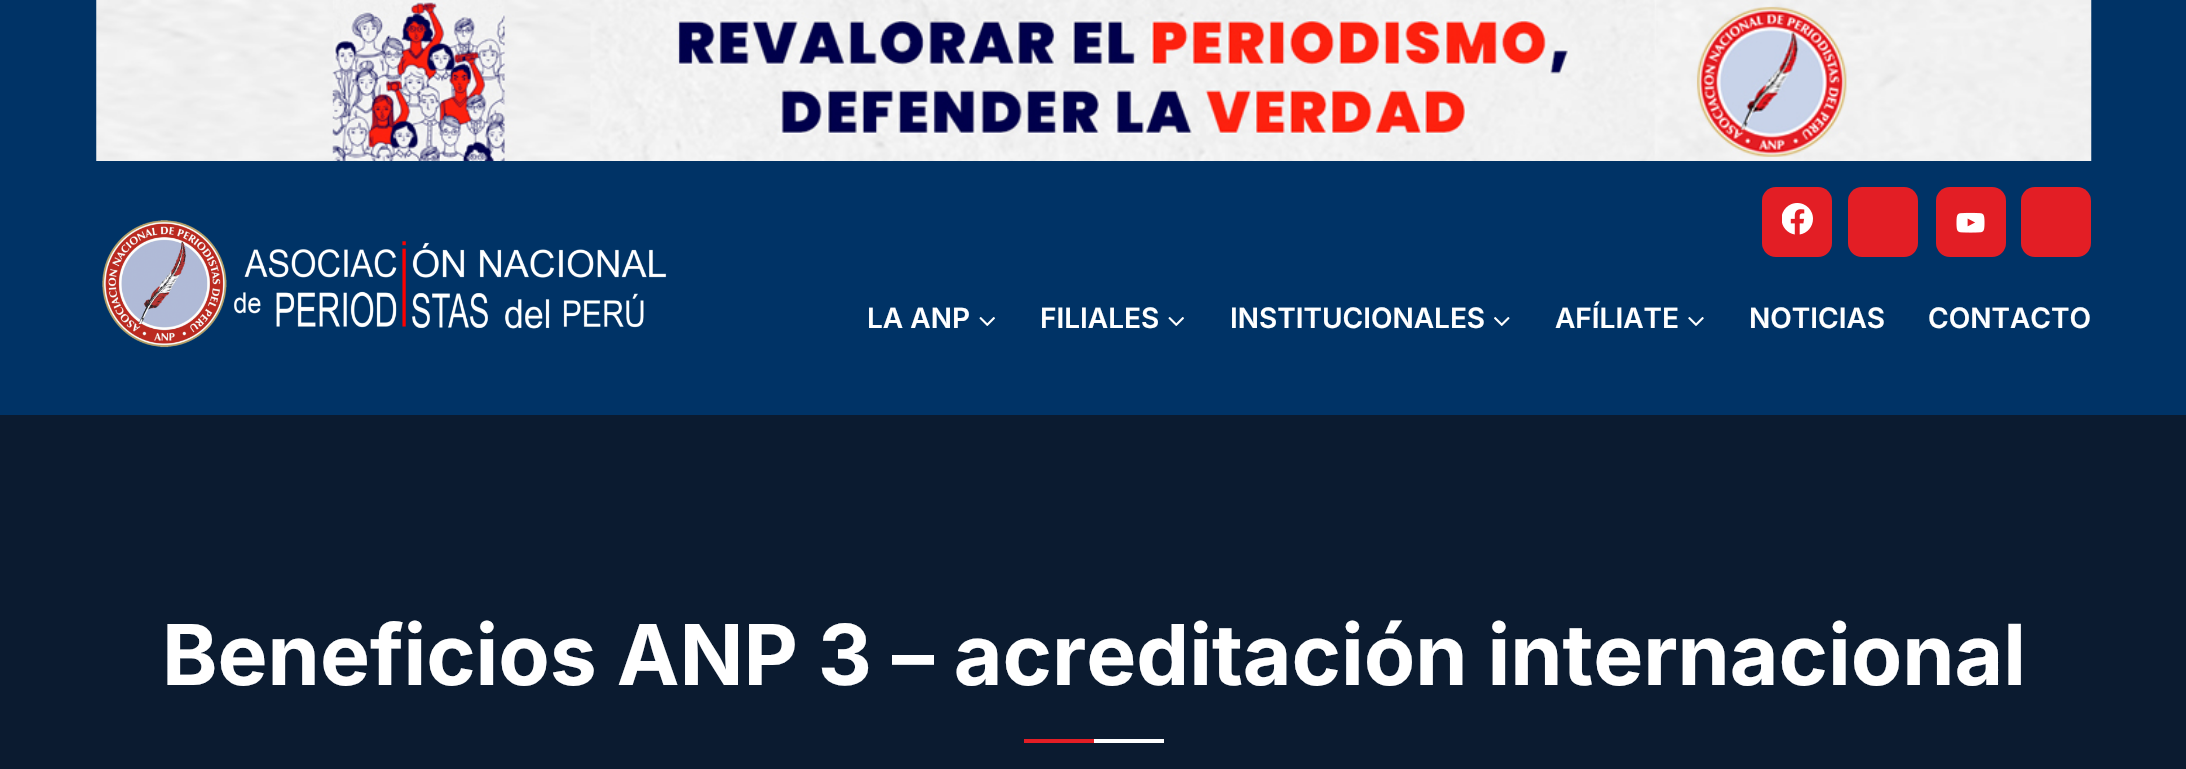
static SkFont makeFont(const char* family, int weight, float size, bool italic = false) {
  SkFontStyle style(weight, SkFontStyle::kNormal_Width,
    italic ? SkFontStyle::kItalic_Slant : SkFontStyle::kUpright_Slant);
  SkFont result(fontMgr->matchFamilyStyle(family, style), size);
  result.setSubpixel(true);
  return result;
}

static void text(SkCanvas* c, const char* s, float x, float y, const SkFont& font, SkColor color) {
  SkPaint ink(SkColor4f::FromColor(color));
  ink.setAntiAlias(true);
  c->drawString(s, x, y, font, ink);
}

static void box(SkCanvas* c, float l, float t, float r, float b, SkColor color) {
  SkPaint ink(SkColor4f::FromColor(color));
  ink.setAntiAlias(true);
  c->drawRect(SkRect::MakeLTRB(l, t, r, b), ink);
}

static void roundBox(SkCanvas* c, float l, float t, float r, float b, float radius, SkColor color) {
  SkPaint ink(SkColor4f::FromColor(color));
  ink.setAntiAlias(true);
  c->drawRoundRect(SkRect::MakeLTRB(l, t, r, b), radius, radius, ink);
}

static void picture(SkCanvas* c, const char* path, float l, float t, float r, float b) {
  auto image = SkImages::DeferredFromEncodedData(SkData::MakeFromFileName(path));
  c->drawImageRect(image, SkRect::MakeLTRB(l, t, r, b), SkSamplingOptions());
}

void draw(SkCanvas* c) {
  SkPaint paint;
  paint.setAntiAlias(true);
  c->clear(0xff003366);
  picture(c, "img_01.png", 96, 0, 2092, 161);
  picture(c, "img_02.png", 102, 220, 667, 348);
  roundBox(c, 1762, 187, 1832, 257, 14, 0xffe31e25);
  picture(c, "img_03.png", 1782, 203, 1813, 235);
  roundBox(c, 1848, 187, 1918, 257, 14, 0xffe31e25);
  roundBox(c, 1936, 187, 2006, 257, 14, 0xffe31e25);
  picture(c, "img_04.png", 1956, 212, 1985, 233);
  roundBox(c, 2021, 187, 2091, 257, 14, 0xffe31e25);
  SkFont face1 = makeFont("Inter", 600, 28);
  text(c, "LA ANP", 867, 328, face1, 0xffffffff);
  picture(c, "img_05.png", 979, 317, 995, 326);
  text(c, "FILIALES", 1040, 328, face1, 0xffffffff);
  picture(c, "img_05.png", 1168, 317, 1184, 326);
  text(c, "INSTITUCIONALES", 1230, 328, face1, 0xffffffff);
  picture(c, "img_06.png", 1494, 317, 1510, 326);
  text(c, "AFÍLIATE", 1555, 328, face1, 0xffffffff);
  picture(c, "img_07.png", 1688, 317, 1704, 326);
  text(c, "NOTICIAS", 1749, 328, face1, 0xffffffff);
  text(c, "CONTACTO", 1928, 328, face1, 0xffffffff);
  box(c, 0, 415, 2186, 769, 0xff0b1b30);
  SkFont face2 = makeFont("Inter", 700, 84);
  text(c, "Beneficios ANP 3 – acreditación internacional", 162, 685, face2, 0xffffffff);
  box(c, 1094, 739, 1164, 743, 0xffffffff);
  box(c, 1024, 739, 1094, 743, 0xffe31e25);
}
